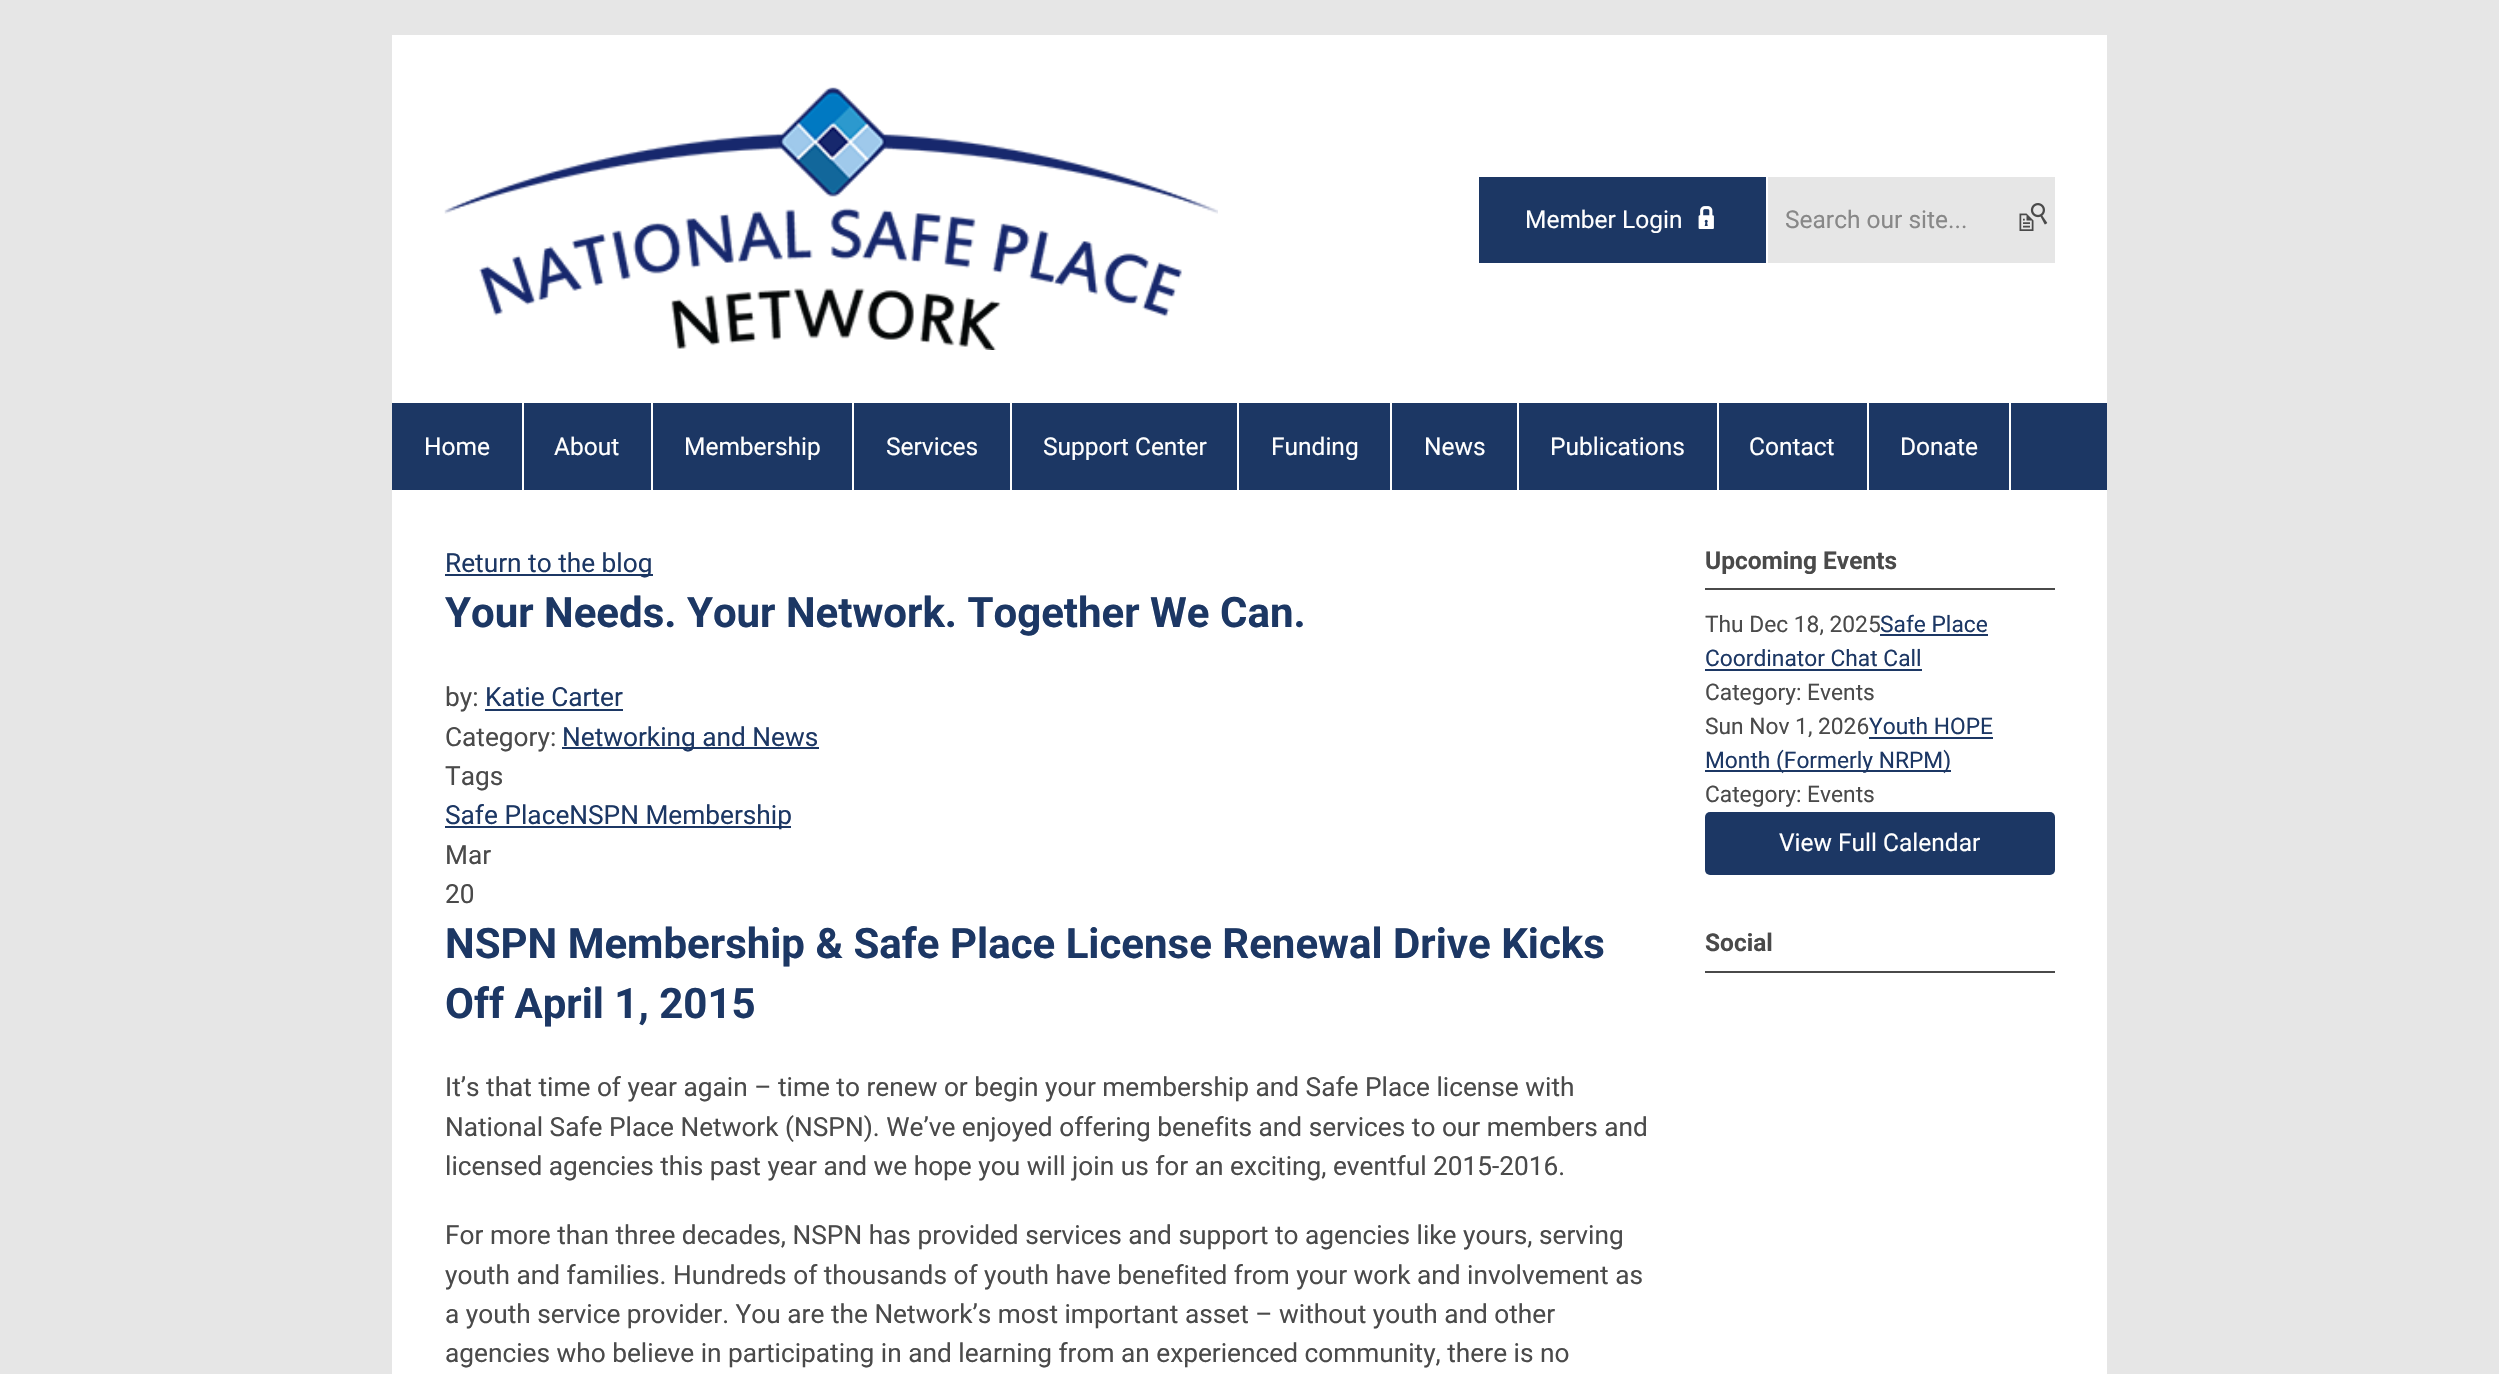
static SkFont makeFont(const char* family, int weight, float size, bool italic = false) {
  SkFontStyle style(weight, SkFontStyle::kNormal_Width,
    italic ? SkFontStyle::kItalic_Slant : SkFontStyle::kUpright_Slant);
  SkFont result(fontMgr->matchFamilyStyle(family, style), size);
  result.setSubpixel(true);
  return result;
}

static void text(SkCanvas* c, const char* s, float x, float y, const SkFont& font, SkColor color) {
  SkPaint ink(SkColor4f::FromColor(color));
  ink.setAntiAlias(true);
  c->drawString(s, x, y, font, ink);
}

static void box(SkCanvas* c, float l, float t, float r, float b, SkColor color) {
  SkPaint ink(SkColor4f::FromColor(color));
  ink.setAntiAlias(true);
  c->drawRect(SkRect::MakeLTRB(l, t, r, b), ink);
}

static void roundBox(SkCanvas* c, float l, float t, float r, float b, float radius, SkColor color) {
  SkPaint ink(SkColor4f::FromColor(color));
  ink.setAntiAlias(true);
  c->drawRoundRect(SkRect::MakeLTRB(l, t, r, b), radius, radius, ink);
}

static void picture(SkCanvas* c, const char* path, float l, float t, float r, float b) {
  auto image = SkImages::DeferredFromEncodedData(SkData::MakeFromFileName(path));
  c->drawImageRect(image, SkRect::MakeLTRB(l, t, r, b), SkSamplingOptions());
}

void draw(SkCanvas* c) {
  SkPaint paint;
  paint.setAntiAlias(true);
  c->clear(0xffe6e6e6);
  box(c, 392, 35, 2107, 403, 0xffffffff);
  picture(c, "img_01.png", 444, 87, 1218, 350);
  box(c, 1479, 177, 1766, 263, 0xff1c3764);
  SkFont face1 = makeFont("Roboto", 400, 24.5f);
  text(c, "Member Login", 1525, 228, face1, 0xffffffff);
  picture(c, "img_02.png", 1698, 206, 1714, 229);
  box(c, 1768, 177, 2055, 263, 0xffe6e6e6);
  text(c, "Search our site...", 1785, 228, face1, 0xff888888);
  picture(c, "img_03.png", 2019, 203, 2048, 231);
  box(c, 392, 403, 2107, 490, 0xff1c3764);
  box(c, 392, 490, 2107, 1374, 0xffffffff);
  box(c, 522, 403, 524, 490, 0xffffffff);
  text(c, "Home", 424, 455, face1, 0xffffffff);
  box(c, 651, 403, 653, 490, 0xffffffff);
  text(c, "About", 554, 455, face1, 0xffffffff);
  box(c, 852, 403, 854, 490, 0xffffffff);
  text(c, "Membership", 684, 455, face1, 0xffffffff);
  box(c, 1010, 403, 1012, 490, 0xffffffff);
  text(c, "Services", 886, 455, face1, 0xffffffff);
  box(c, 1237, 403, 1239, 490, 0xffffffff);
  text(c, "Support Center", 1043, 455, face1, 0xffffffff);
  box(c, 1390, 403, 1392, 490, 0xffffffff);
  text(c, "Funding", 1271, 455, face1, 0xffffffff);
  box(c, 1517, 403, 1519, 490, 0xffffffff);
  text(c, "News", 1424, 455, face1, 0xffffffff);
  box(c, 1717, 403, 1719, 490, 0xffffffff);
  text(c, "Publications", 1550, 455, face1, 0xffffffff);
  box(c, 1867, 403, 1869, 490, 0xffffffff);
  text(c, "Contact", 1749, 455, face1, 0xffffffff);
  box(c, 2009, 403, 2011, 490, 0xffffffff);
  text(c, "Donate", 1900, 455, face1, 0xffffffff);
  box(c, 445, 574, 653, 576, 0xff1c3764);
  SkFont face2 = makeFont("Roboto", 400, 26.25f);
  text(c, "Return to the blog", 445, 572, face2, 0xff1c3764);
  SkFont face3 = makeFont("Roboto", 700, 42);
  text(c, "Your Needs. Your Network. Together We Can.", 445, 627, face3, 0xff1c3764);
  text(c, "by:", 445, 706, face2, 0xff4a4a4a);
  text(c, "Katie Carter", 485, 706, face2, 0xff1c3764);
  box(c, 485, 709, 623, 711, 0xff1c3764);
  text(c, "Category:", 445, 746, face2, 0xff4a4a4a);
  box(c, 562, 747, 819, 749, 0xff1c3764);
  text(c, "Networking and News", 562, 746, face2, 0xff1c3764);
  text(c, "Tags", 445, 785, face2, 0xff4a4a4a);
  box(c, 445, 826, 791, 828, 0xff1c3764);
  text(c, "Safe PlaceNSPN Membership", 445, 824, face2, 0xff1c3764);
  text(c, "Mar", 445, 864, face2, 0xff4a4a4a);
  text(c, "20", 445, 903, face2, 0xff4a4a4a);
  text(c, "NSPN Membership & Safe Place License Renewal Drive Kicks", 445, 958, face3, 0xff1c3764);
  text(c, "Off April 1, 2015", 445, 1018, face3, 0xff1c3764);
  text(c, "It’s that time of year again – time to renew or begin your membership and Safe Place license with", 445, 1096, face2, 0xff4a4a4a);
  text(c, "National Safe Place Network (NSPN). We’ve enjoyed offering benefits and services to our members and", 445, 1136, face2, 0xff4a4a4a);
  text(c, "licensed agencies this past year and we hope you will join us for an exciting, eventful 2015-2016.", 445, 1175, face2, 0xff4a4a4a);
  text(c, "For more than three decades, NSPN has provided services and support to agencies like yours, serving", 445, 1244, face2, 0xff4a4a4a);
  text(c, "youth and families. Hundreds of thousands of youth have benefited from your work and involvement as", 445, 1284, face2, 0xff4a4a4a);
  text(c, "a youth service provider. You are the Network’s most important asset – without youth and other", 445, 1323, face2, 0xff4a4a4a);
  text(c, "agencies who believe in participating in and learning from an experienced community, there is no", 445, 1362, face2, 0xff4a4a4a);
  box(c, 1705, 588, 2055, 590, 0xff4a4a4a);
  SkFont face4 = makeFont("Roboto", 700, 24.5f);
  text(c, "Upcoming Events", 1705, 569, face4, 0xff4a4a4a);
  SkFont face5 = makeFont("Roboto", 400, 22.75f);
  text(c, "Thu Dec 18, 2025", 1705, 632, face5, 0xff4a4a4a);
  text(c, "Safe Place", 1880, 632, face5, 0xff1c3764);
  box(c, 1880, 634, 1988, 636, 0xff1c3764);
  text(c, "Coordinator Chat Call", 1705, 666, face5, 0xff1c3764);
  box(c, 1705, 669, 1922, 671, 0xff1c3764);
  text(c, "Category: Events", 1705, 700, face5, 0xff4a4a4a);
  text(c, "Sun Nov 1, 2026", 1705, 734, face5, 0xff4a4a4a);
  text(c, "Youth HOPE", 1869, 734, face5, 0xff1c3764);
  box(c, 1869, 737, 1993, 739, 0xff1c3764);
  box(c, 1705, 770, 1951, 772, 0xff1c3764);
  text(c, "Month (Formerly NRPM)", 1705, 768, face5, 0xff1c3764);
  text(c, "Category: Events", 1705, 802, face5, 0xff4a4a4a);
  roundBox(c, 1705, 812, 2055, 875, 5, 0xff1c3764);
  text(c, "View Full Calendar", 1779, 851, face1, 0xffffffff);
  box(c, 1705, 971, 2055, 973, 0xff4a4a4a);
  text(c, "Social", 1705, 951, face4, 0xff4a4a4a);
}
